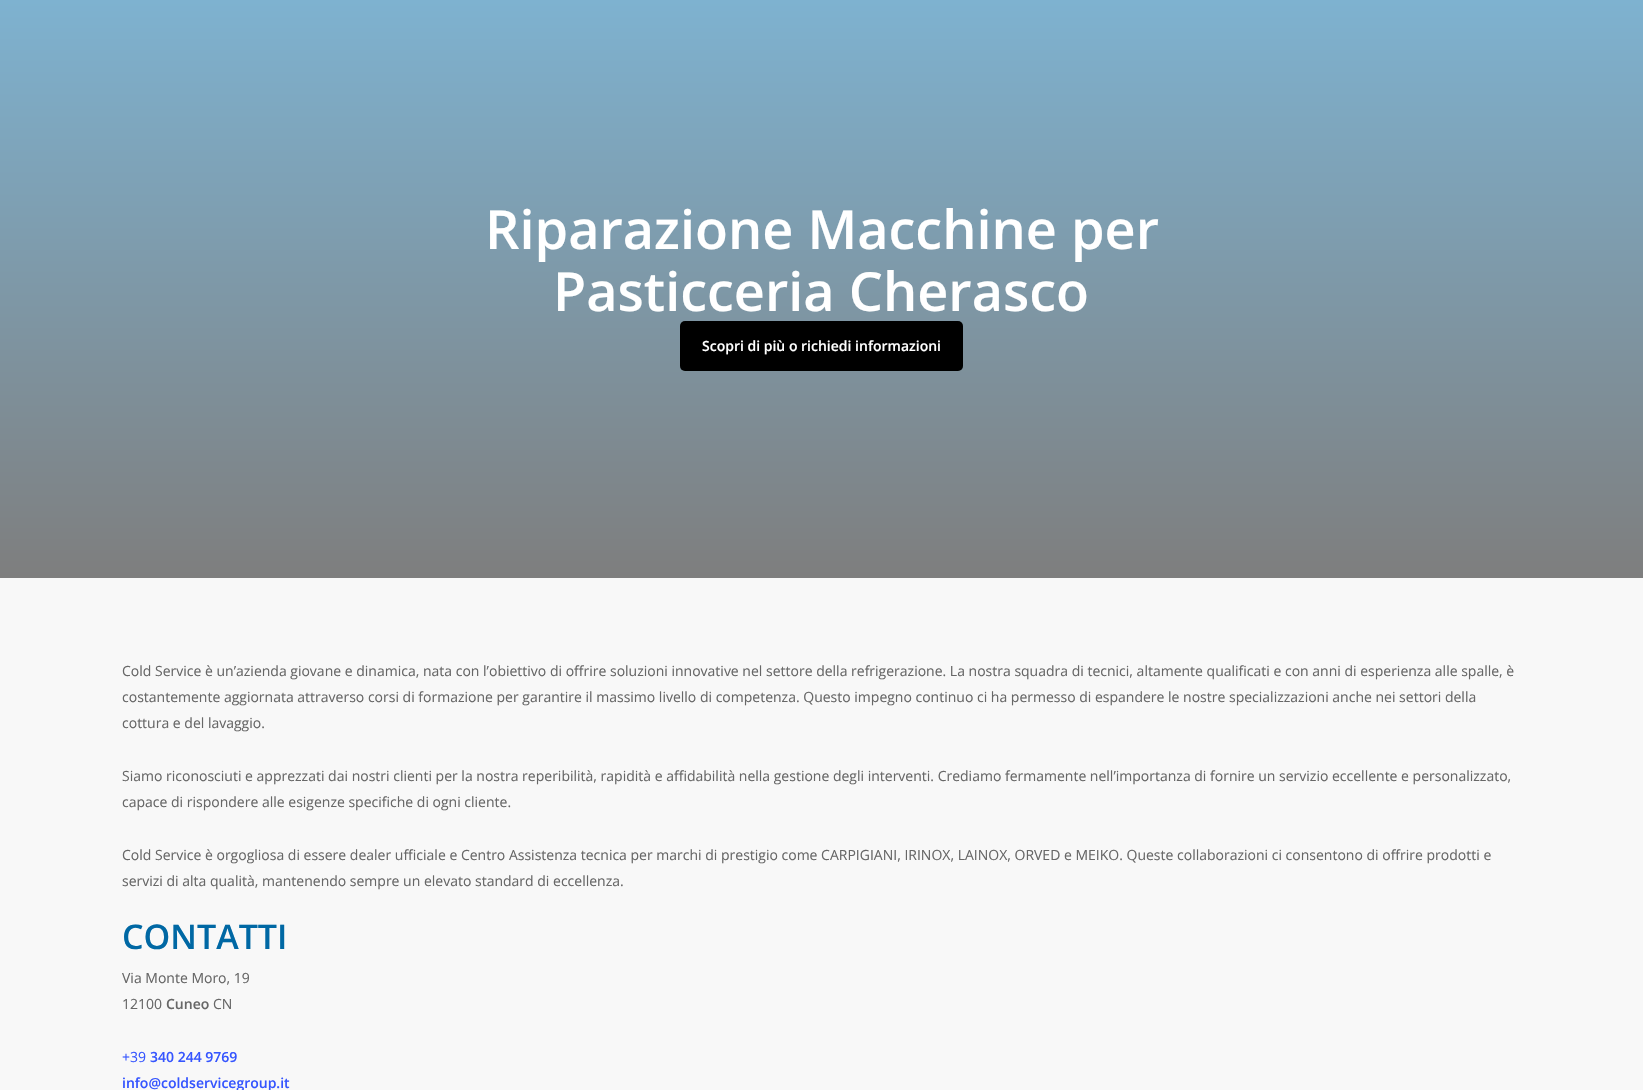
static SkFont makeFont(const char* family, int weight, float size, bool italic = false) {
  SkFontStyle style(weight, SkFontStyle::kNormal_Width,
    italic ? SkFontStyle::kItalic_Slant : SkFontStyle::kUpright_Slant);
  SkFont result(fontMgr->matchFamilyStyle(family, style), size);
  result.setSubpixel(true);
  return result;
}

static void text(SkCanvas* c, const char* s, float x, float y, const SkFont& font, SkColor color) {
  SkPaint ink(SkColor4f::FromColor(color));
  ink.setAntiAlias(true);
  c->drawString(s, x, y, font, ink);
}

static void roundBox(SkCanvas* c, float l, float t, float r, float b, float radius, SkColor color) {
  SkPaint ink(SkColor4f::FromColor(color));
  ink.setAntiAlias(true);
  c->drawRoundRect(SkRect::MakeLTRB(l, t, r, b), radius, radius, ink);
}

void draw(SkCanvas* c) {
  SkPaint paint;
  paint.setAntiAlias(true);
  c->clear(0xfff8f8f8);
  {
    const SkColor colors[] = {0xff7eb2d0, 0xff7e7e7e};
    const float stops[] = {0, 1};
    const SkPoint ends[] = {{822, 0}, {822, 578}};
    paint.setShader(SkGradientShader::MakeLinear(ends, colors, stops, 2, SkTileMode::kClamp));
    paint.setAlpha(255);
  }
  c->drawRect(SkRect::MakeLTRB(0, 0, 1643, 578), paint);
  SkFont face1 = makeFont("Open Sans", 600, 54);
  text(c, "Riparazione Macchine per", 485, 249, face1, 0xffffffff);
  text(c, "Pasticceria Cherasco", 553, 311, face1, 0xffffffff);
  roundBox(c, 680, 321, 963, 371, 5, 0xff000000);
  paint.setShader(nullptr);
  paint.setColor(0x1a000000);
  c->drawPath(SkPathBuilder().moveTo(680, 363).lineTo(680, 366).cubicTo(680, 369, 682, 371, 685, 371).lineTo(958, 371).cubicTo(961, 371, 963, 369, 963, 366).lineTo(963, 363).cubicTo(963, 366, 961, 368, 958, 368).lineTo(685, 368).cubicTo(682, 368, 680, 366, 680, 363).close().detach(), paint);
  SkFont face2 = makeFont("Open Sans", 600, 14);
  text(c, "Scopri di più o richiedi informazioni", 702, 351, face2, 0xffffffff);
  SkFont face3 = makeFont("Open Sans", 400, 14);
  text(c, "Cold Service è un’azienda giovane e dinamica, nata con l’obiettivo di offrire soluzioni innovative nel settore della refrigerazione. La nostra squadra di tecnici, altamente qualificati e con anni di esperienza alle spalle, è", 122, 676, face3, 0xff676767);
  text(c, "costantemente aggiornata attraverso corsi di formazione per garantire il massimo livello di competenza. Questo impegno continuo ci ha permesso di espandere le nostre specializzazioni anche nei settori della", 122, 702, face3, 0xff676767);
  text(c, "cottura e del lavaggio.", 122, 728, face3, 0xff676767);
  text(c, "Siamo riconosciuti e apprezzati dai nostri clienti per la nostra reperibilità, rapidità e affidabilità nella gestione degli interventi. Crediamo fermamente nell’importanza di fornire un servizio eccellente e personalizzato,", 122, 781, face3, 0xff676767);
  text(c, "capace di rispondere alle esigenze specifiche di ogni cliente.", 122, 807, face3, 0xff676767);
  text(c, "Cold Service è orgogliosa di essere dealer ufficiale e Centro Assistenza tecnica per marchi di prestigio come CARPIGIANI, IRINOX, LAINOX, ORVED e MEIKO. Queste collaborazioni ci consentono di offrire prodotti e", 122, 860, face3, 0xff676767);
  text(c, "servizi di alta qualità, mantenendo sempre un elevato standard di eccellenza.", 122, 886, face3, 0xff676767);
  SkFont face4 = makeFont("Open Sans", 600, 34);
  text(c, "CONTATTI", 122, 949, face4, 0xff0068a4);
  text(c, "Via Monte Moro, 19", 122, 983, face3, 0xff676767);
  text(c, "12100", 122, 1009, face3, 0xff676767);
  text(c, "Cuneo", 166, 1009, face2, 0xff676767);
  text(c, "CN", 213, 1009, face3, 0xff676767);
  text(c, "+39", 122, 1062, face3, 0xff3555ff);
  text(c, "340 244 9769", 150, 1062, face2, 0xff3555ff);
  text(c, "info@coldservicegroup.it", 122, 1088, face2, 0xff3555ff);
}
